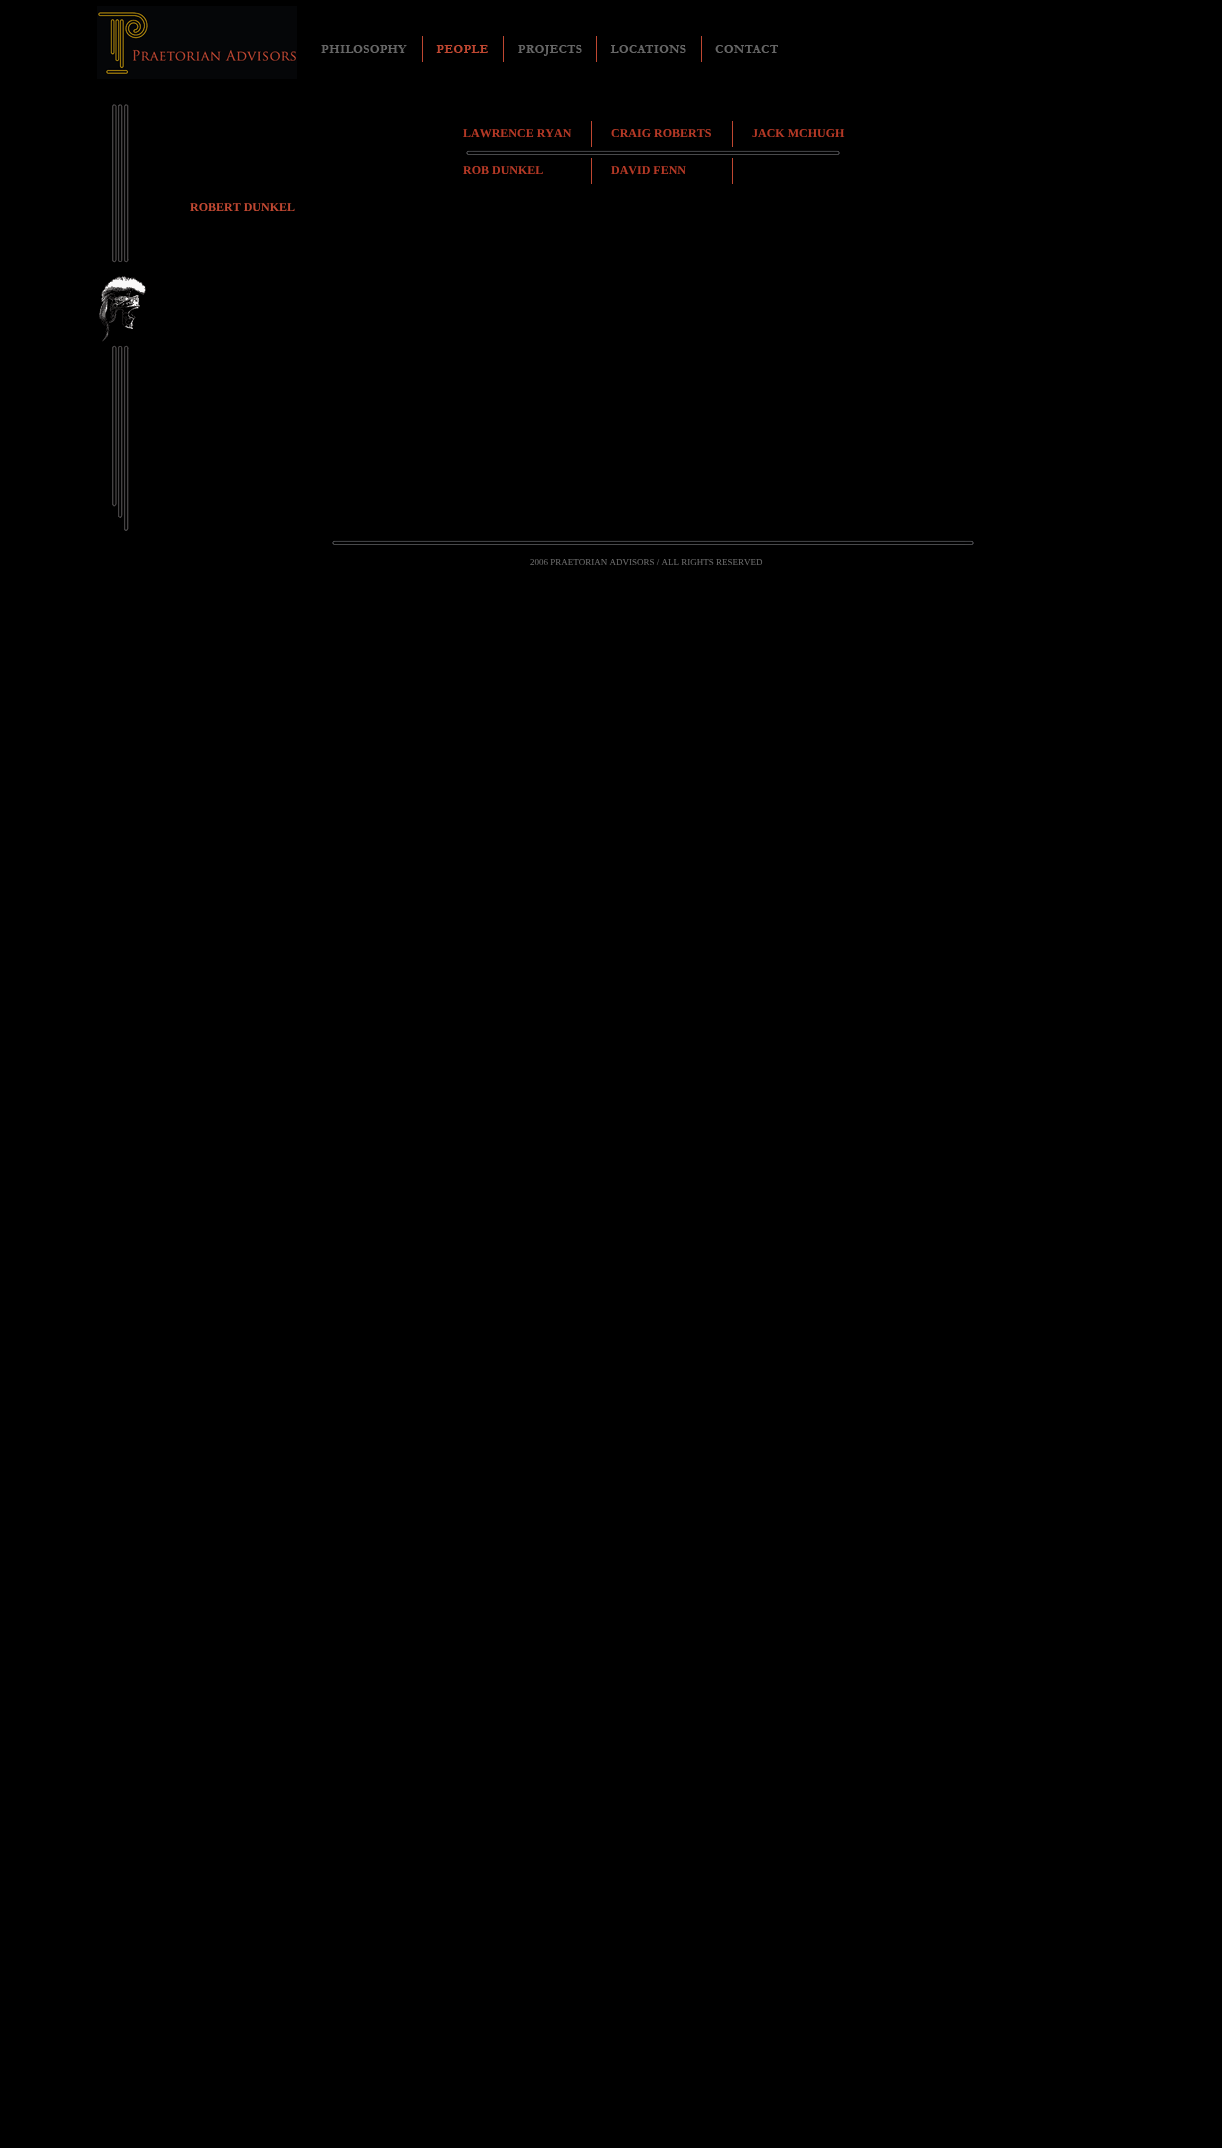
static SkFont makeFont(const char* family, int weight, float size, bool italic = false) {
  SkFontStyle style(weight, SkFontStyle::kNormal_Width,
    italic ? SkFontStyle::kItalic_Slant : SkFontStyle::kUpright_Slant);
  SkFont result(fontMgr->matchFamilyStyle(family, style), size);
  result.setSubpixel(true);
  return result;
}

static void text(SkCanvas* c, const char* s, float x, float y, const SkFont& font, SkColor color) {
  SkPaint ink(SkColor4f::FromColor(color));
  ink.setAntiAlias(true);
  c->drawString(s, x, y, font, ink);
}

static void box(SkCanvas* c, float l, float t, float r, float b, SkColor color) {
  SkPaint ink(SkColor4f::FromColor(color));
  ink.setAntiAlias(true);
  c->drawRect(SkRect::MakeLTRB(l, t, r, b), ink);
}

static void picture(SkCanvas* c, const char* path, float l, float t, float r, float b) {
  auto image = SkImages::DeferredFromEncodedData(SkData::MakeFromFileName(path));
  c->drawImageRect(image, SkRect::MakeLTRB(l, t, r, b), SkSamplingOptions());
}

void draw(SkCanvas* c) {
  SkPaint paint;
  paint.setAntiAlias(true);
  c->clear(0xff000000);
  picture(c, "img_01.png", 97, 6, 297, 79);
  picture(c, "img_02.png", 321, 45, 407, 53);
  box(c, 422, 36, 423, 62, 0xffbf4731);
  picture(c, "img_03.png", 436, 45, 488, 53);
  box(c, 503, 36, 504, 62, 0xffbf4731);
  picture(c, "img_04.png", 518, 45, 582, 56);
  box(c, 596, 36, 597, 62, 0xffbf4731);
  picture(c, "img_05.png", 610, 45, 686, 53);
  box(c, 701, 36, 702, 62, 0xffbf4731);
  picture(c, "img_06.png", 715, 45, 778, 53);
  picture(c, "img_07.png", 99, 104, 146, 531);
  SkFont face1 = makeFont("Liberation Serif", 700, 12);
  text(c, "LAWRENCE RYAN", 463, 137, face1, 0xffb43825);
  picture(c, "img_08.png", 581, 121, 601, 147);
  text(c, "CRAIG ROBERTS", 611, 137, face1, 0xffb43825);
  picture(c, "img_08.png", 722, 121, 742, 147);
  text(c, "JACK MCHUGH", 752, 137, face1, 0xffb43825);
  picture(c, "img_09.png", 466, 150, 473, 155);
  picture(c, "img_10.png", 473, 150, 831, 155);
  picture(c, "img_11.png", 831, 150, 840, 155);
  text(c, "ROB DUNKEL", 463, 174, face1, 0xffb43825);
  picture(c, "img_08.png", 581, 158, 601, 184);
  text(c, "DAVID FENN", 611, 174, face1, 0xffb43825);
  picture(c, "img_08.png", 722, 158, 742, 184);
  text(c, "ROBERT DUNKEL", 190, 211, face1, 0xffbf4731);
  picture(c, "img_09.png", 332, 540, 339, 545);
  picture(c, "img_12.png", 339, 540, 965, 545);
  picture(c, "img_11.png", 965, 540, 974, 545);
  SkFont face2 = makeFont("Liberation Serif", 400, 9);
  text(c, "2006 PRAETORIAN ADVISORS / ALL RIGHTS RESERVED", 530, 565, face2, 0xff666666);
}
